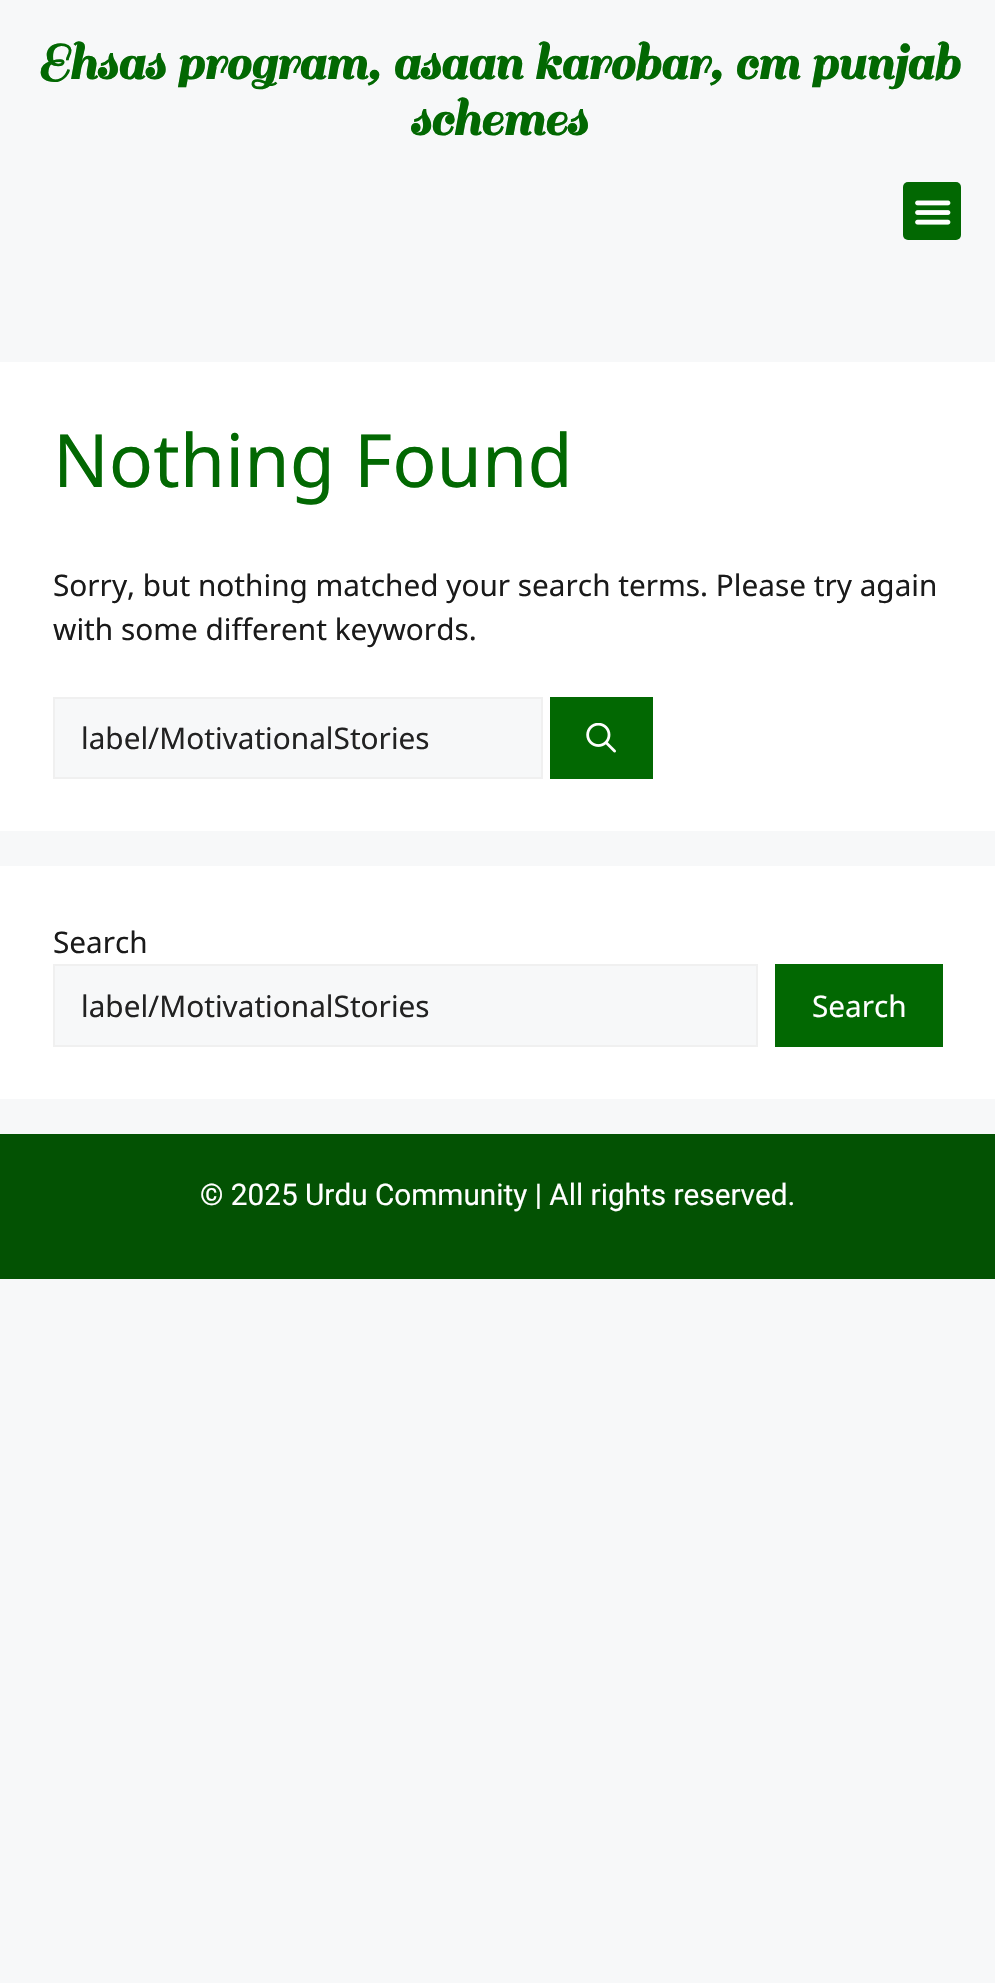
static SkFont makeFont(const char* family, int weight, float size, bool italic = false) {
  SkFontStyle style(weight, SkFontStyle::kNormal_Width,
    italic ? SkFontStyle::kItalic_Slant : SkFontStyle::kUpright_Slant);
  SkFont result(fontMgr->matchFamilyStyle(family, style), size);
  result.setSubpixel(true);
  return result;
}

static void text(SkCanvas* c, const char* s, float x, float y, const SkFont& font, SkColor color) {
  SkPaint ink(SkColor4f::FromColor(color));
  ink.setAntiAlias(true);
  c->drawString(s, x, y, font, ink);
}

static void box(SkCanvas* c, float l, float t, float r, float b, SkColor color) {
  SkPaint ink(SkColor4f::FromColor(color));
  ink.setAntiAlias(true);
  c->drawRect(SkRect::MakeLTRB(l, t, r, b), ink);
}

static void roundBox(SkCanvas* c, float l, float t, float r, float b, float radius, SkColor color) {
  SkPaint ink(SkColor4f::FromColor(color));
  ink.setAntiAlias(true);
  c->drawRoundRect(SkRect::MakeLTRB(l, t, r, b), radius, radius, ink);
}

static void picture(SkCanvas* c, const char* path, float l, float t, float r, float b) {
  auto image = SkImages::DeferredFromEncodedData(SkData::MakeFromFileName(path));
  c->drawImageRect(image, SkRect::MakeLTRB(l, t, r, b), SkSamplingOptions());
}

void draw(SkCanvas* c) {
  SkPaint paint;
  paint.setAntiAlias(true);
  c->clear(0xfff7f8f9);
  SkFont face1 = makeFont("Sail", 700, 56);
  text(c, "Ehsas program, asaan karobar, cm punjab", 37, 79, face1, 0xff026802);
  text(c, "schemes", 409, 135, face1, 0xff026802);
  roundBox(c, 903, 182, 961, 240, 5, 0xff026802);
  picture(c, "img_01.png", 915, 200, 951, 225);
  box(c, 0, 362, 995, 831, 0xffffffff);
  SkFont face2 = makeFont("Noto Sans", 400, 73.5f);
  text(c, "Nothing Found", 53, 487, face2, 0xff026802);
  SkFont face3 = makeFont("Noto Sans", 400, 29.75f);
  text(c, "Sorry, but nothing matched your search terms. Please try again", 53, 596, face3, 0xff1a1a1a);
  text(c, "with some different keywords.", 53, 640, face3, 0xff1a1a1a);
  paint.setColor(0xfff7f8f9);
  c->drawRect(SkRect::MakeLTRB(54, 698, 542, 778), paint);
  paint.setStyle(SkPaint::kStroke_Style);
  paint.setStrokeWidth(2);
  paint.setColor(0xfff0f0f0);
  c->drawRect(SkRect::MakeLTRB(54, 698, 542, 778), paint);
  text(c, "label/MotivationalStories", 81, 749, face3, 0xff222222);
  box(c, 550, 697, 653, 779, 0xff026802);
  picture(c, "img_02.png", 586, 723, 616, 753);
  box(c, 0, 866, 995, 1099, 0xffffffff);
  text(c, "Search", 53, 953, face3, 0xff1a1a1a);
  paint.setStyle(SkPaint::kFill_Style);
  paint.setColor(0xfff7f8f9);
  c->drawRect(SkRect::MakeLTRB(54, 965, 757, 1046), paint);
  paint.setStyle(SkPaint::kStroke_Style);
  paint.setColor(0xfff0f0f0);
  c->drawRect(SkRect::MakeLTRB(54, 965, 757, 1046), paint);
  text(c, "label/MotivationalStories", 81, 1017, face3, 0xff222222);
  box(c, 775, 964, 943, 1047, 0xff026802);
  text(c, "Search", 812, 1017, face3, 0xffffffff);
  box(c, 0, 1134, 995, 1279, 0xff035203);
  SkFont face4 = makeFont("Roboto", 400, 29.75f);
  text(c, "© 2025 Urdu Community | All rights reserved.", 200, 1205, face4, 0xffffffff);
}
